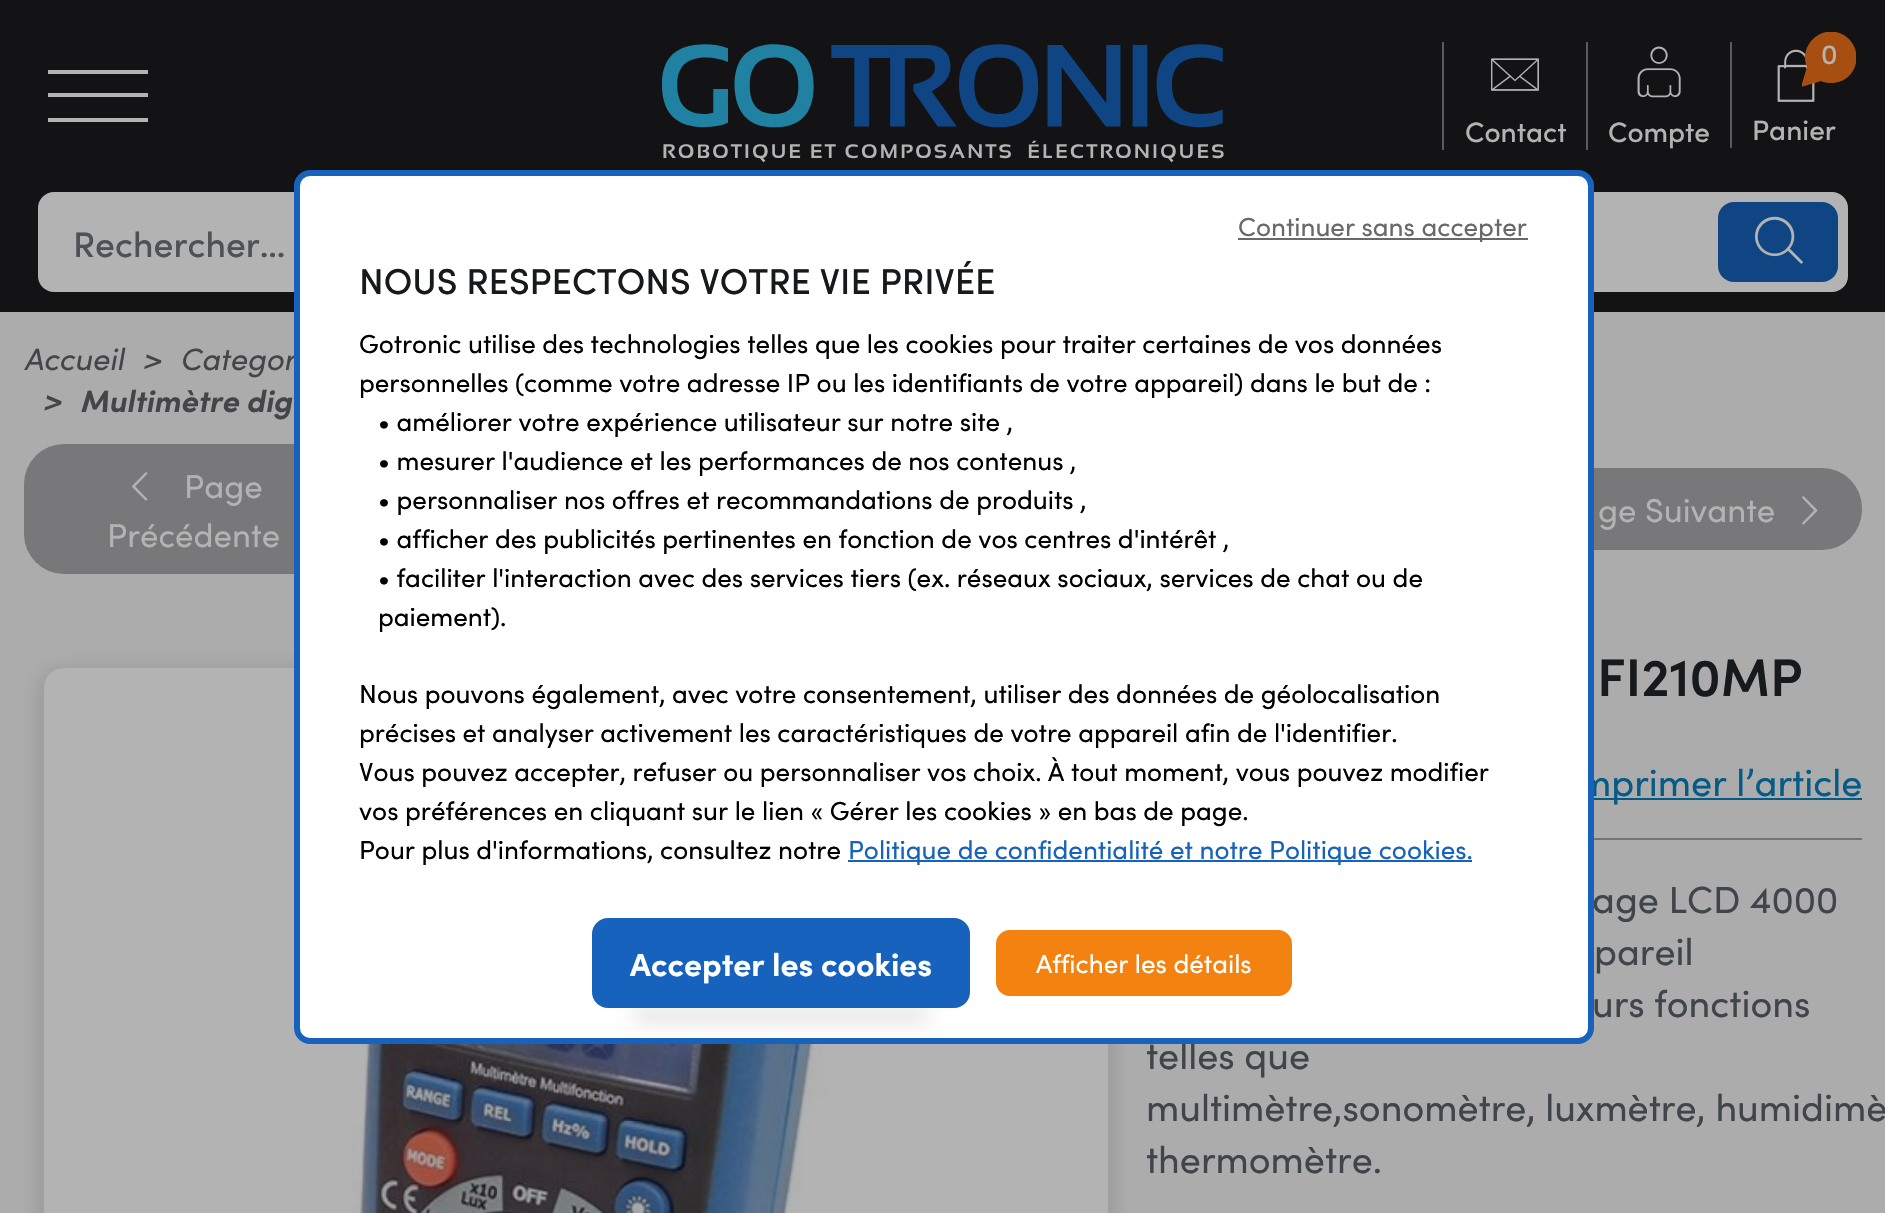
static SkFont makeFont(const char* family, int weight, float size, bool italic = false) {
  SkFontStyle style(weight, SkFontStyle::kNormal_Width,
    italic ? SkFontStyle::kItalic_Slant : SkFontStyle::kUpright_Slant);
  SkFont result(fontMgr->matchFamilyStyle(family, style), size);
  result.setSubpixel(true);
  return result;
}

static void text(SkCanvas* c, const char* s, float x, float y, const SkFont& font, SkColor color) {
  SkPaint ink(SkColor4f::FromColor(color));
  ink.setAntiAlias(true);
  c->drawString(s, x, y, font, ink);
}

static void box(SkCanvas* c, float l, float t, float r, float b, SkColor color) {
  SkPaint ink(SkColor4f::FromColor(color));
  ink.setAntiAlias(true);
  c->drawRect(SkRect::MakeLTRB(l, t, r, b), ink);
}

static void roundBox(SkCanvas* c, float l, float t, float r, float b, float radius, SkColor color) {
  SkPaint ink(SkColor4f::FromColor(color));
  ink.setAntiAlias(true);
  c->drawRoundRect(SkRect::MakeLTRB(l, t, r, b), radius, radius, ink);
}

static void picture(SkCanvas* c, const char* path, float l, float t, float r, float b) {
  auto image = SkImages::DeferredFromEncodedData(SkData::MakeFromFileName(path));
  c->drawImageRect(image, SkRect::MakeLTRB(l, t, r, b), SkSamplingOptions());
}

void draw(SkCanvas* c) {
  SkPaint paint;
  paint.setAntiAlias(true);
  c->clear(0xffacacad);
  box(c, 0, 0, 1885, 312, 0xff131315);
  box(c, 48, 70, 148, 74, 0xffb3b3b3);
  box(c, 48, 93, 148, 97, 0xffb3b3b3);
  box(c, 48, 118, 148, 122, 0xffb3b3b3);
  picture(c, "img_01.png", 661, 44, 1224, 163);
  box(c, 1442, 42, 1444, 150, 0xff5a5b5d);
  picture(c, "img_02.png", 1491, 58, 1539, 91);
  SkFont face1 = makeFont("Sofia", 500, 28);
  text(c, "Contact", 1465, 142, face1, 0xffb3b3b3);
  box(c, 1586, 42, 1588, 150, 0xff5a5b5d);
  picture(c, "img_03.png", 1637, 46, 1681, 98);
  text(c, "Compte", 1608, 142, face1, 0xffb3b3b3);
  box(c, 1730, 42, 1732, 148, 0xff5a5b5d);
  picture(c, "img_04.png", 1777, 49, 1815, 102);
  c->save();
  c->clipRect(SkRect::MakeLTRB(1802, 32, 1856, 88));
  paint.setColor(0xffa74e11);
  c->drawPath(SkPathBuilder().moveTo(1849, 76).cubicTo(1859, 66, 1859, 49, 1849, 39).cubicTo(1839, 29, 1823, 29, 1813, 39).cubicTo(1805, 47, 1803, 58, 1807, 67).lineTo(1801, 87).lineTo(1821, 81).cubicTo(1830, 85, 1842, 83, 1849, 76).detach(), paint);
  c->restore();
  text(c, "0", 1821, 64, face1, 0xffb3b3b3);
  text(c, "Panier", 1752, 140, face1, 0xffb3b3b3);
  roundBox(c, 38, 192, 1848, 292, 16, 0xffb3b3b3);
  SkFont face2 = makeFont("Sofia", 500, 35.5f);
  text(c, "Rechercher…", 73, 257, face2, 0xff4c5258);
  roundBox(c, 1718, 202, 1838, 282, 16, 0xff104584);
  picture(c, "img_05.png", 1755, 216, 1803, 264);
  SkFont face3 = makeFont("Sofia", 400, 30.75f, true);
  text(c, "Accueil", 24, 370, face3, 0xff454549);
  text(c, ">", 142, 370, face3, 0xff454549);
  text(c, "Categor", 180, 370, face3, 0xff454549);
  SkFont face4 = makeFont("Sofia", 700, 30.75f, true);
  text(c, ">", 42, 412, face4, 0xff454549);
  text(c, "Multimètre dig", 80, 412, face4, 0xff454549);
  roundBox(c, 24, 444, 364, 574, 40, 0xff78787b);
  picture(c, "img_06.png", 132, 472, 148, 501);
  SkFont face5 = makeFont("Sofia", 400, 33);
  text(c, "Page", 184, 498, face5, 0xffb3b3b3);
  text(c, "Précédente", 107, 547, face5, 0xffb3b3b3);
  roundBox(c, 1522, 468, 1862, 550, 40, 0xff78787b);
  text(c, "ge Suivante", 1598, 522, face5, 0xffb3b3b3);
  picture(c, "img_07.png", 1802, 496, 1818, 525);
  c->save();
  c->clipRect(SkRect::MakeLTRB(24, 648, 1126, 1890));
  paint.setColor(0x4f6d6d6d);
  paint.setMaskFilter(SkMaskFilter::MakeBlur(kNormal_SkBlurStyle, 10));
  c->drawRoundRect(SkRect::MakeLTRB(38, 668, 1114, 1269), 26, 26, paint);
  paint.setMaskFilter(nullptr);
  c->restore();
  roundBox(c, 44, 668, 1108, 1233, 20, 0xffb3b3b3);
  picture(c, "img_08.png", 352, 1044, 842, 1213);
  box(c, 1594, 838, 1862, 840, 0xff6f7479);
  SkFont face6 = makeFont("Sofia", 600, 53);
  text(c, "FI210MP", 1597, 696, face6, 0xff171a1d);
  box(c, 1594, 798, 1862, 800, 0xff055b87);
  SkFont face7 = makeFont("Sofia", 400, 37.75f);
  text(c, "mprimer l’article", 1578, 796, face7, 0xff055b87);
  text(c, "age LCD 4000", 1592, 913, face7, 0xff3f454b);
  text(c, "pareil", 1594, 965, face7, 0xff3f454b);
  text(c, "urs fonctions", 1592, 1017, face7, 0xff3f454b);
  text(c, "telles que", 1146, 1069, face7, 0xff3f454b);
  text(c, "multimètre,sonomètre, luxmètre, humidimè", 1146, 1121, face7, 0xff3f454b);
  text(c, "thermomètre.", 1146, 1173, face7, 0xff3f454b);
  paint.setColor(0xffffffff);
  c->drawRoundRect(SkRect::MakeLTRB(297, 173, 1591, 1041), 13, 13, paint);
  paint.setStyle(SkPaint::kStroke_Style);
  paint.setStrokeWidth(6);
  paint.setColor(0xff1762bc);
  c->drawRoundRect(SkRect::MakeLTRB(297, 173, 1591, 1041), 13, 13, paint);
  box(c, 1238, 238, 1528, 240, 0xff696969);
  SkFont face8 = makeFont("Sofia", 400, 26);
  text(c, "Continuer sans accepter", 1238, 236, face8, 0xff696969);
  SkFont face9 = makeFont("Sofia", 500, 36);
  text(c, "NOUS RESPECTONS VOTRE VIE PRIVÉE", 359, 294, face9, 0xff171a1d);
  text(c, "Gotronic utilise des technologies telles que les cookies pour traiter certaines de vos données", 359, 353, face8, 0xff000000);
  text(c, "personnelles (comme votre adresse IP ou les identifiants de votre appareil) dans le but de :", 359, 392, face8, 0xff000000);
  text(c, "• améliorer votre expérience utilisateur sur notre site ,", 378, 431, face8, 0xff000000);
  text(c, "• mesurer l'audience et les performances de nos contenus ,", 378, 470, face8, 0xff000000);
  text(c, "• personnaliser nos offres et recommandations de produits ,", 378, 509, face8, 0xff000000);
  text(c, "• afficher des publicités pertinentes en fonction de vos centres d'intérêt ,", 378, 548, face8, 0xff000000);
  text(c, "• faciliter l'interaction avec des services tiers (ex. réseaux sociaux, services de chat ou de", 378, 587, face8, 0xff000000);
  text(c, "paiement).", 378, 626, face8, 0xff000000);
  text(c, "Nous pouvons également, avec votre consentement, utiliser des données de géolocalisation", 359, 703, face8, 0xff000000);
  text(c, "précises et analyser activement les caractéristiques de votre appareil afin de l'identifier.", 359, 742, face8, 0xff000000);
  text(c, "Vous pouvez accepter, refuser ou personnaliser vos choix. À tout moment, vous pouvez modifier", 359, 781, face8, 0xff000000);
  text(c, "vos préférences en cliquant sur le lien « Gérer les cookies » en bas de page.", 359, 820, face8, 0xff000000);
  text(c, "Pour plus d'informations, consultez notre", 359, 859, face8, 0xff000000);
  box(c, 848, 860, 1472, 862, 0xff1762bc);
  text(c, "Politique de confidentialité et notre Politique cookies.", 848, 859, face8, 0xff1762bc);
  paint.setStyle(SkPaint::kFill_Style);
  paint.setColor(0x47000000);
  paint.setMaskFilter(SkMaskFilter::MakeBlur(kNormal_SkBlurStyle, 10));
  c->drawRect(SkRect::MakeLTRB(634, 1012, 928, 1018), paint);
  paint.setMaskFilter(nullptr);
  roundBox(c, 592, 918, 970, 1008, 16, 0xff1762bc);
  SkFont face10 = makeFont("Sofia", 700, 32);
  text(c, "Accepter les cookies", 630, 976, face10, 0xffffffff);
  paint.setColor(0xfff48211);
  c->drawRoundRect(SkRect::MakeLTRB(995, 929, 1293, 997), 15, 15, paint);
  paint.setStyle(SkPaint::kStroke_Style);
  paint.setStrokeWidth(2);
  paint.setColor(0xffffffff);
  c->drawRoundRect(SkRect::MakeLTRB(995, 929, 1293, 997), 15, 15, paint);
  text(c, "Afficher les détails", 1036, 973, face8, 0xffffffff);
}
